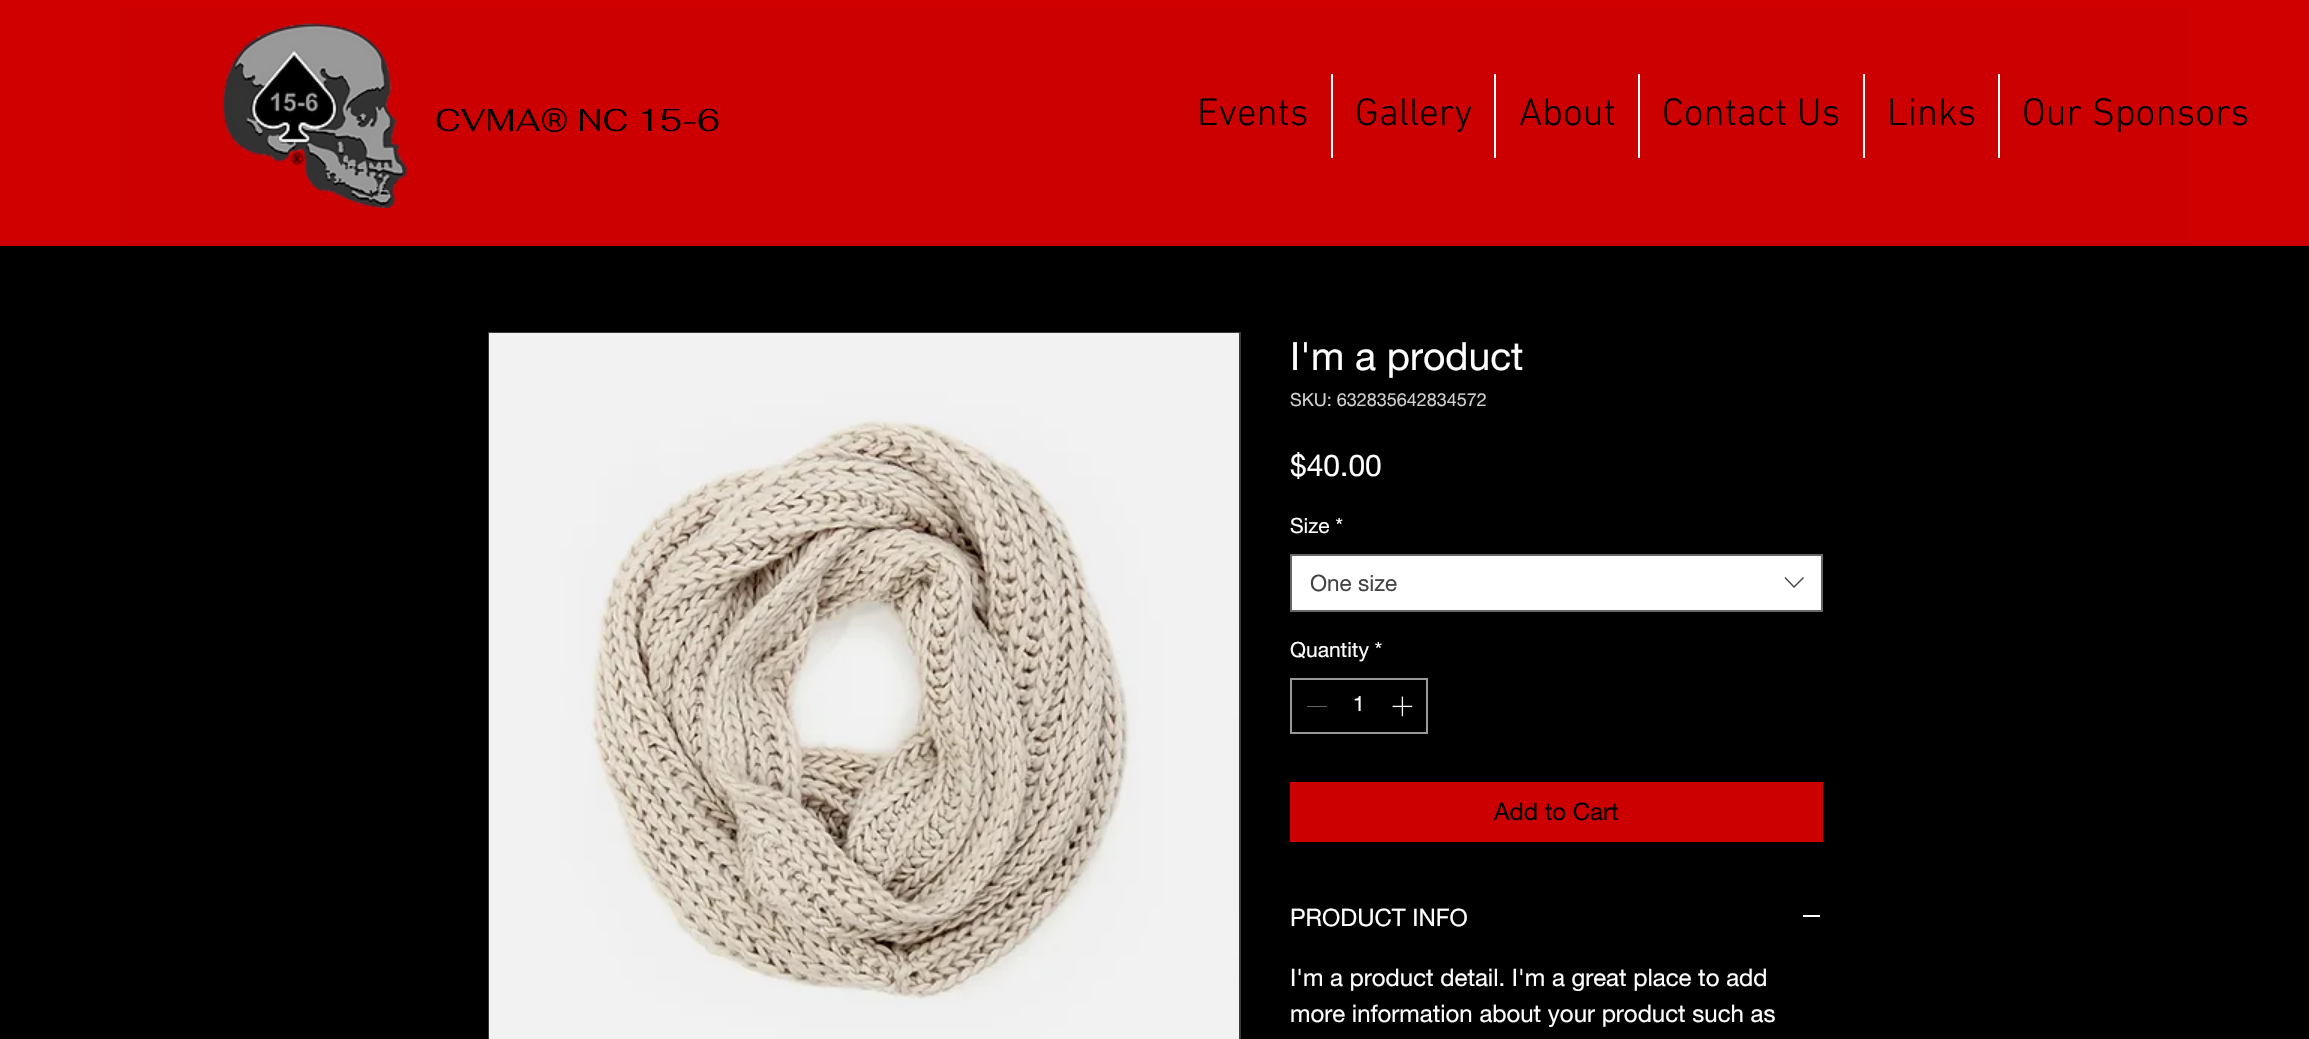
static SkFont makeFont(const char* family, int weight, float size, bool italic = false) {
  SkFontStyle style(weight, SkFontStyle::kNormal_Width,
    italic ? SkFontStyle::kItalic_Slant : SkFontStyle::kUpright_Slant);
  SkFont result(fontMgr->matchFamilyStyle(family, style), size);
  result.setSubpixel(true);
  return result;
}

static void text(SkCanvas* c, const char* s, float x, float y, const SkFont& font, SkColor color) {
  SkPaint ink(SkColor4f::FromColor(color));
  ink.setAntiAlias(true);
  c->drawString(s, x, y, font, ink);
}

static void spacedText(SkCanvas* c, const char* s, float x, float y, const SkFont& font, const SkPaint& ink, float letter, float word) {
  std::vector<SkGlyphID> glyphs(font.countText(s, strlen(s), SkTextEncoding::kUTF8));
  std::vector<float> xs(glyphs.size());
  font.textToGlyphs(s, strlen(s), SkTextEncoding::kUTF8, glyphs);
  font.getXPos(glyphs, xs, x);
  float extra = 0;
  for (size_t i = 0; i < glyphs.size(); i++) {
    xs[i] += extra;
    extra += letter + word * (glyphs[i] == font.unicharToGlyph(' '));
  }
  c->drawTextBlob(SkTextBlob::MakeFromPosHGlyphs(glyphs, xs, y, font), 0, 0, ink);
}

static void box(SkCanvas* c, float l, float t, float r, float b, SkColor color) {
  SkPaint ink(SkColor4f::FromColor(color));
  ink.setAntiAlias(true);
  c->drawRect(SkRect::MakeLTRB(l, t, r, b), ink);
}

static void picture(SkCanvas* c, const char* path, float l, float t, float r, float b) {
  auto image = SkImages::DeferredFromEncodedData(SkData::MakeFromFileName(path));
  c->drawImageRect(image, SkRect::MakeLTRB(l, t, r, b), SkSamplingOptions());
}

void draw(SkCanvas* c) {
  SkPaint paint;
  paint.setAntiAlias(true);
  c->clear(0xff000000);
  box(c, 0, 0, 2309, 246, 0xffcf0000);
  box(c, 120, 8, 2190, 246, 0xffcc0000);
  picture(c, "img_01.png", 223, 23, 407, 208);
  SkFont face1 = makeFont("Fahkwang", 400, 31.5f);
  paint.setColor(0xff000000);
  spacedText(c, "CVMA® NC 15-6", 435, 131, face1, paint, 0.6f, 0);
  SkFont face2 = makeFont("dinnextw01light", 300, 39);
  text(c, "Events", 1197, 125, face2, 0xff000000);
  box(c, 1331, 74, 1333, 158, 0xffffffff);
  text(c, "Gallery", 1355, 125, face2, 0xff000000);
  box(c, 1494, 74, 1496, 158, 0xffffffff);
  text(c, "About", 1519, 125, face2, 0xff000000);
  box(c, 1638, 74, 1640, 158, 0xffffffff);
  text(c, "Contact Us", 1662, 125, face2, 0xff000000);
  box(c, 1863, 74, 1865, 158, 0xffffffff);
  text(c, "Links", 1887, 125, face2, 0xff000000);
  box(c, 1998, 74, 2000, 158, 0xffffffff);
  text(c, "Our Sponsors", 2022, 125, face2, 0xff000000);
  paint.setStyle(SkPaint::kStroke_Style);
  paint.setStrokeWidth(2);
  paint.setColor(0xff3b3b3b);
  c->drawRect(SkRect::MakeLTRB(489, 333, 1240, 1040), paint);
  picture(c, "img_02.png", 489, 333, 1239, 1039);
  SkFont face3 = makeFont("helvetica neue", 400, 39);
  text(c, "I'm a product", 1290, 370, face3, 0xffffffff);
  SkFont face4 = makeFont("helvetica neue", 400, 18);
  text(c, "SKU: 632835642834572", 1290, 406, face4, 0xffd1d1d1);
  SkFont face5 = makeFont("helvetica neue", 400, 30);
  text(c, "$40.00", 1290, 476, face5, 0xffffffff);
  SkFont face6 = makeFont("helvetica neue", 400, 21);
  text(c, "Size *", 1290, 533, face6, 0xffffffff);
  paint.setStyle(SkPaint::kFill_Style);
  paint.setColor(0xffffffff);
  c->drawRect(SkRect::MakeLTRB(1291, 555, 1822, 611), paint);
  paint.setStyle(SkPaint::kStroke_Style);
  paint.setColor(0xff666666);
  c->drawRect(SkRect::MakeLTRB(1291, 555, 1822, 611), paint);
  SkFont face7 = makeFont("helvetica neue", 400, 22.5f);
  text(c, "One size", 1310, 591, face7, 0xff444444);
  paint.setStyle(SkPaint::kFill_Style);
  paint.setColor(0xff444444);
  c->drawPath(SkPathBuilder(SkPathFillType::kEvenOdd).moveTo(1803, 577).lineTo(1804, 578).lineTo(1794, 588).lineTo(1784.5f, 578).lineTo(1785.5f, 577).lineTo(1794, 586).close().detach(), paint);
  text(c, "Quantity *", 1290, 657, face6, 0xffffffff);
  paint.setStyle(SkPaint::kStroke_Style);
  paint.setColor(0xff999999);
  c->drawRect(SkRect::MakeLTRB(1291, 679, 1427, 733), paint);
  box(c, 1307, 706, 1327, 707, 0xff646464);
  text(c, "1", 1353, 711, face6, 0xffffffff);
  picture(c, "img_03.png", 1392, 696, 1413, 717);
  box(c, 1290, 782, 1823, 842, 0xffcc0000);
  SkFont face8 = makeFont("helvetica neue", 400, 24);
  text(c, "Add to Cart", 1494, 820, face8, 0xff000000);
  text(c, "PRODUCT INFO", 1290, 926, face8, 0xffffffff);
  box(c, 1803, 915, 1820, 917, 0xffffffff);
  text(c, "I'm a product detail. I'm a great place to add", 1290, 986, face8, 0xffffffff);
  text(c, "more information about your product such as", 1290, 1022, face8, 0xffffffff);
}
